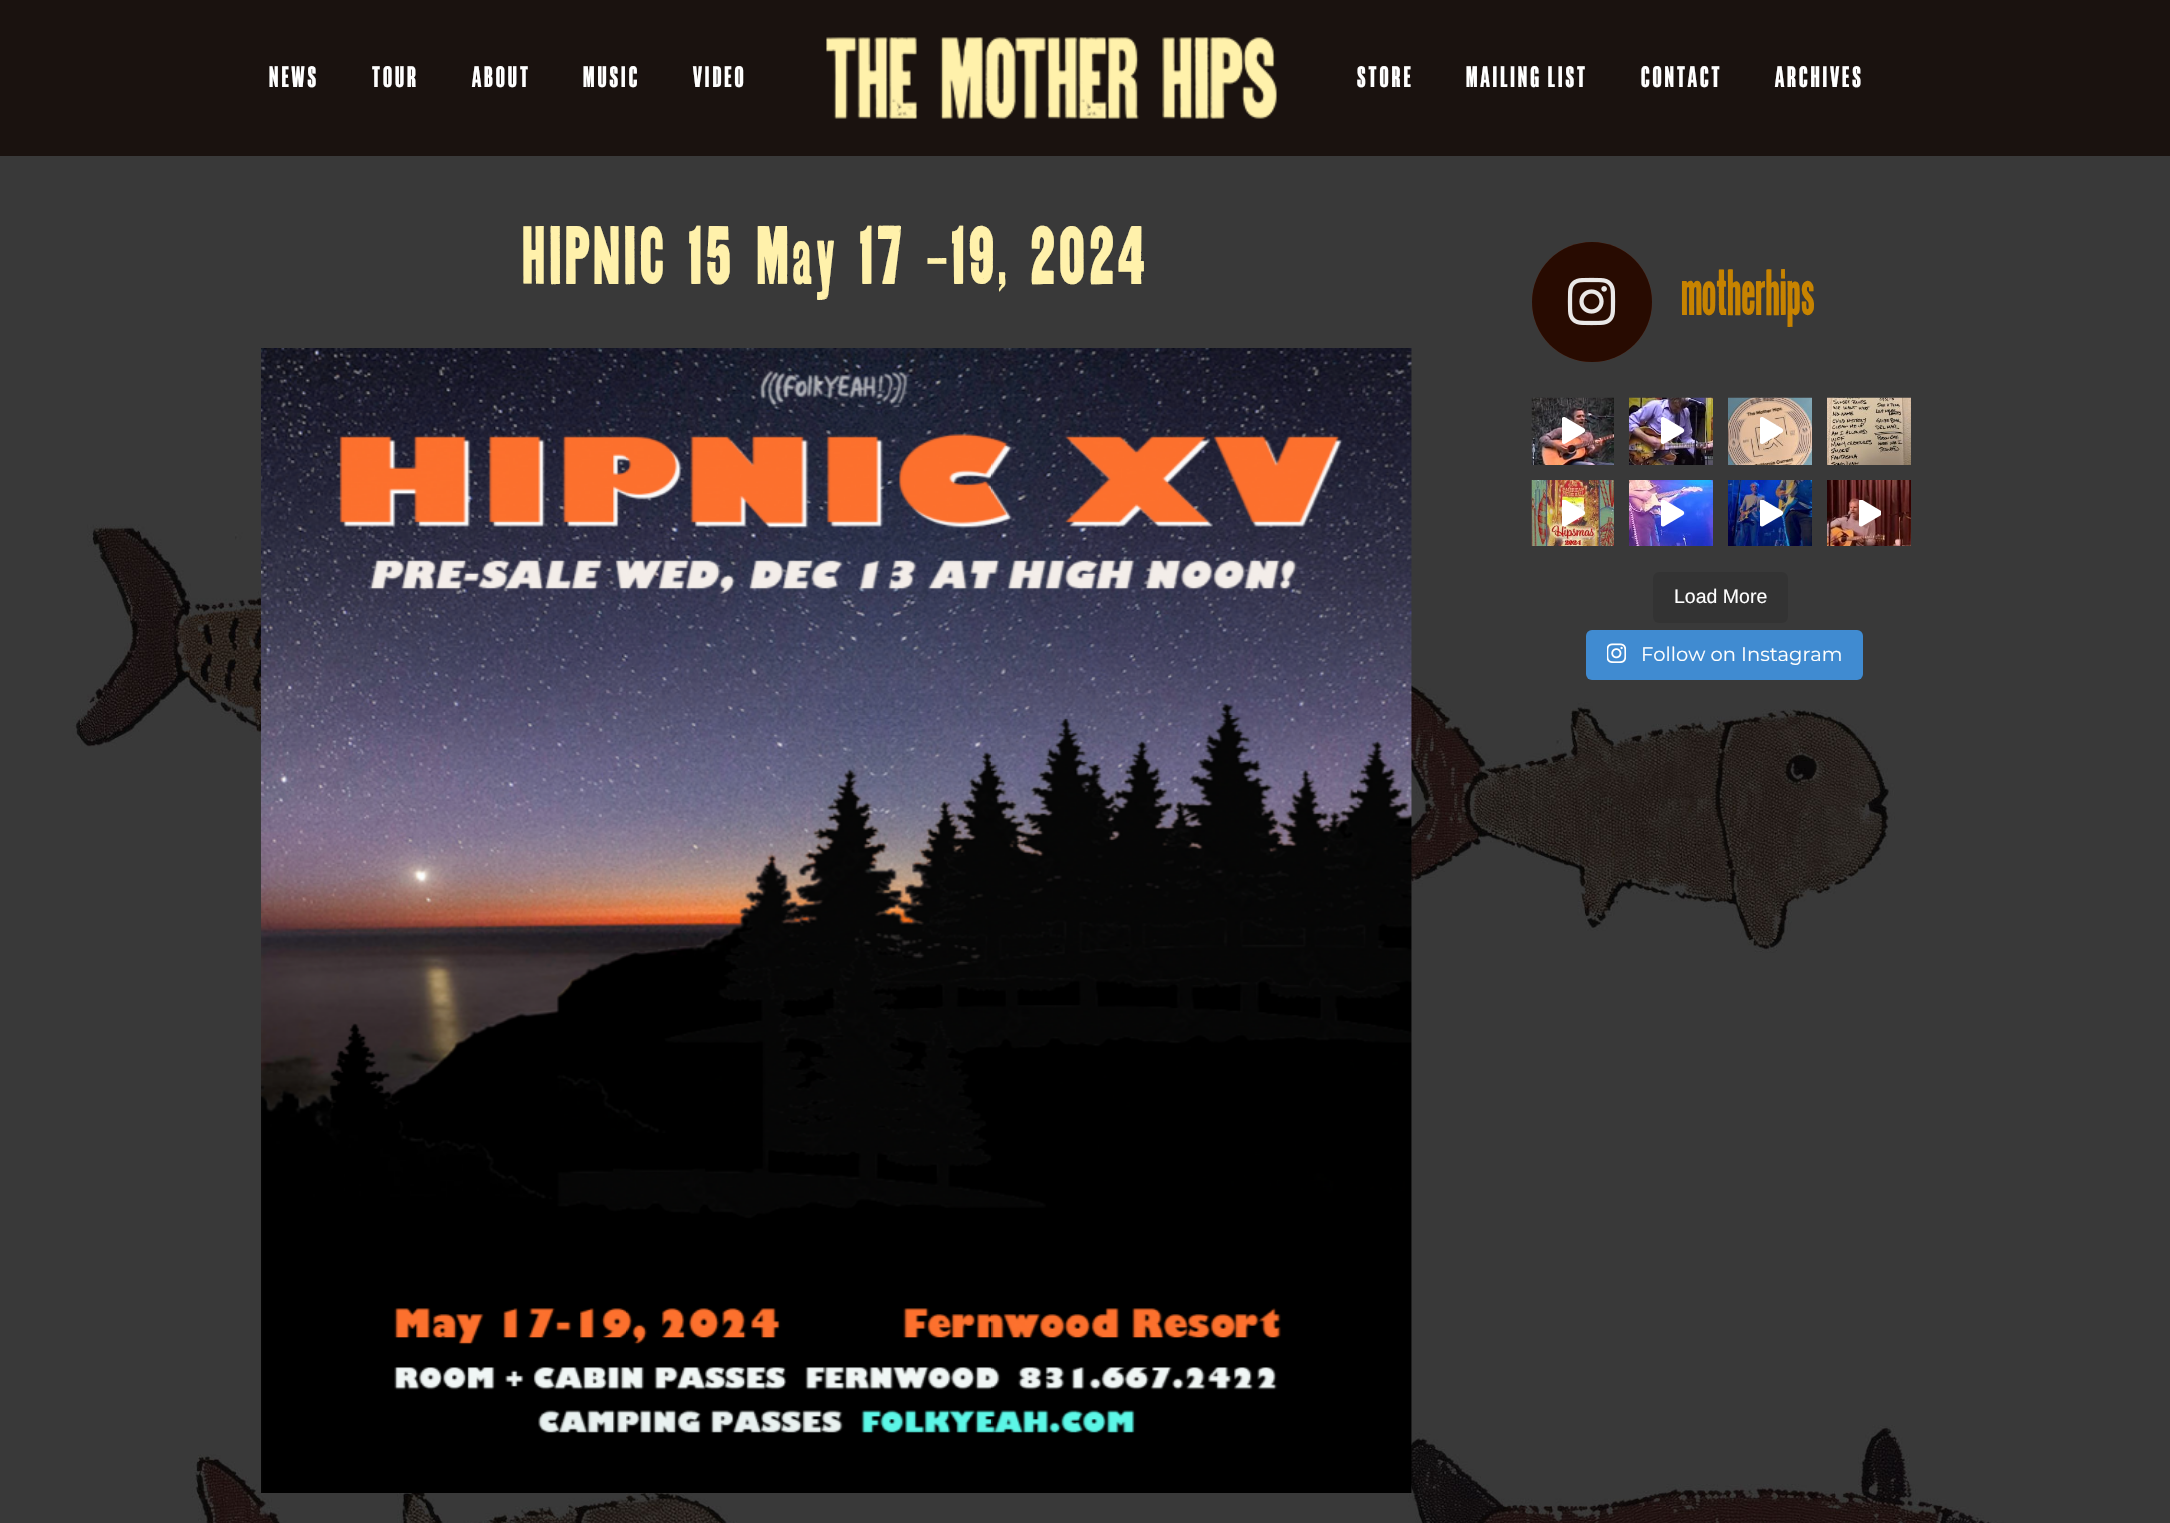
static SkFont makeFont(const char* family, int weight, float size, bool italic = false) {
  SkFontStyle style(weight, SkFontStyle::kNormal_Width,
    italic ? SkFontStyle::kItalic_Slant : SkFontStyle::kUpright_Slant);
  SkFont result(fontMgr->matchFamilyStyle(family, style), size);
  result.setSubpixel(true);
  return result;
}

static void text(SkCanvas* c, const char* s, float x, float y, const SkFont& font, SkColor color) {
  SkPaint ink(SkColor4f::FromColor(color));
  ink.setAntiAlias(true);
  c->drawString(s, x, y, font, ink);
}

static void spacedText(SkCanvas* c, const char* s, float x, float y, const SkFont& font, const SkPaint& ink, float letter, float word) {
  std::vector<SkGlyphID> glyphs(font.countText(s, strlen(s), SkTextEncoding::kUTF8));
  std::vector<float> xs(glyphs.size());
  font.textToGlyphs(s, strlen(s), SkTextEncoding::kUTF8, glyphs);
  font.getXPos(glyphs, xs, x);
  float extra = 0;
  for (size_t i = 0; i < glyphs.size(); i++) {
    xs[i] += extra;
    extra += letter + word * (glyphs[i] == font.unicharToGlyph(' '));
  }
  c->drawTextBlob(SkTextBlob::MakeFromPosHGlyphs(glyphs, xs, y, font), 0, 0, ink);
}

static void box(SkCanvas* c, float l, float t, float r, float b, SkColor color) {
  SkPaint ink(SkColor4f::FromColor(color));
  ink.setAntiAlias(true);
  c->drawRect(SkRect::MakeLTRB(l, t, r, b), ink);
}

static void roundBox(SkCanvas* c, float l, float t, float r, float b, float radius, SkColor color) {
  SkPaint ink(SkColor4f::FromColor(color));
  ink.setAntiAlias(true);
  c->drawRoundRect(SkRect::MakeLTRB(l, t, r, b), radius, radius, ink);
}

static void picture(SkCanvas* c, const char* path, float l, float t, float r, float b) {
  auto image = SkImages::DeferredFromEncodedData(SkData::MakeFromFileName(path));
  c->drawImageRect(image, SkRect::MakeLTRB(l, t, r, b), SkSamplingOptions());
}

void draw(SkCanvas* c) {
  SkPaint paint;
  paint.setAntiAlias(true);
  c->clear(0xffffffff);
  box(c, 0, 0, 2170, 156, 0xff1a120f);
  SkFont face1 = makeFont("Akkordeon", 500, 29.5f);
  paint.setColor(0xffffffff);
  spacedText(c, "NEWS", 269, 87, face1, paint, 3, 0);
  spacedText(c, "TOUR", 372, 87, face1, paint, 3, 0);
  spacedText(c, "ABOUT", 472, 87, face1, paint, 3, 0);
  spacedText(c, "MUSIC", 583, 87, face1, paint, 3, 0);
  spacedText(c, "VIDEO", 693, 87, face1, paint, 3, 0);
  picture(c, "img_01.png", 826, 37, 1277, 119);
  spacedText(c, "STORE", 1357, 87, face1, paint, 3, 0);
  spacedText(c, "MAILING LIST", 1466, 87, face1, paint, 3, 0);
  spacedText(c, "CONTACT", 1641, 87, face1, paint, 3, 0);
  spacedText(c, "ARCHIVES", 1775, 87, face1, paint, 3, 0);
  picture(c, "img_02.png", 0, 156, 2170, 1523);
  SkFont face2 = makeFont("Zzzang", 400, 82.5f);
  paint.setColor(0xfffff1ab);
  spacedText(c, "HIPNIC 15 May 17 -19, 2024", 522, 284, face2, paint, 4.1f, 0);
  picture(c, "img_03.png", 261, 348, 1412, 1493);
  paint.setColor(0xff7b2202);
  c->drawCircle(1592, 302, 60, paint);
  paint.setColor(0xad000000);
  c->drawCircle(1592, 302, 60, paint);
  picture(c, "img_04.png", 1567, 277, 1616, 326);
  SkFont face3 = makeFont("Zzzang", 400, 65);
  text(c, "motherhips", 1681, 315, face3, 0xffc78300);
  picture(c, "img_05.png", 1531, 397, 1614, 465);
  picture(c, "img_06.png", 1562, 417, 1586, 444);
  picture(c, "img_07.png", 1629, 397, 1713, 465);
  picture(c, "img_08.png", 1661, 417, 1685, 444);
  picture(c, "img_09.png", 1728, 397, 1812, 465);
  picture(c, "img_10.png", 1760, 417, 1784, 444);
  picture(c, "img_11.png", 1827, 397, 1911, 465);
  picture(c, "img_12.png", 1531, 480, 1614, 546);
  picture(c, "img_13.png", 1562, 500, 1586, 527);
  picture(c, "img_14.png", 1629, 480, 1713, 546);
  picture(c, "img_15.png", 1661, 500, 1685, 527);
  picture(c, "img_16.png", 1728, 480, 1812, 546);
  picture(c, "img_17.png", 1760, 500, 1784, 527);
  picture(c, "img_18.png", 1827, 480, 1911, 546);
  picture(c, "img_19.png", 1859, 500, 1881, 527);
  roundBox(c, 1653, 572, 1788, 623, 6, 0xff333333);
  SkFont face4 = makeFont("Liberation Sans", 400, 19.5f);
  text(c, "Load More", 1674, 603, face4, 0xffffffff);
  roundBox(c, 1586, 630, 1863, 680, 6, 0xff408bd1);
  picture(c, "img_20.png", 1607, 643, 1626, 663);
  SkFont face5 = makeFont("Montserrat", 400, 19.5f);
  text(c, "Follow on Instagram", 1641, 661, face5, 0xffffffff);
}
